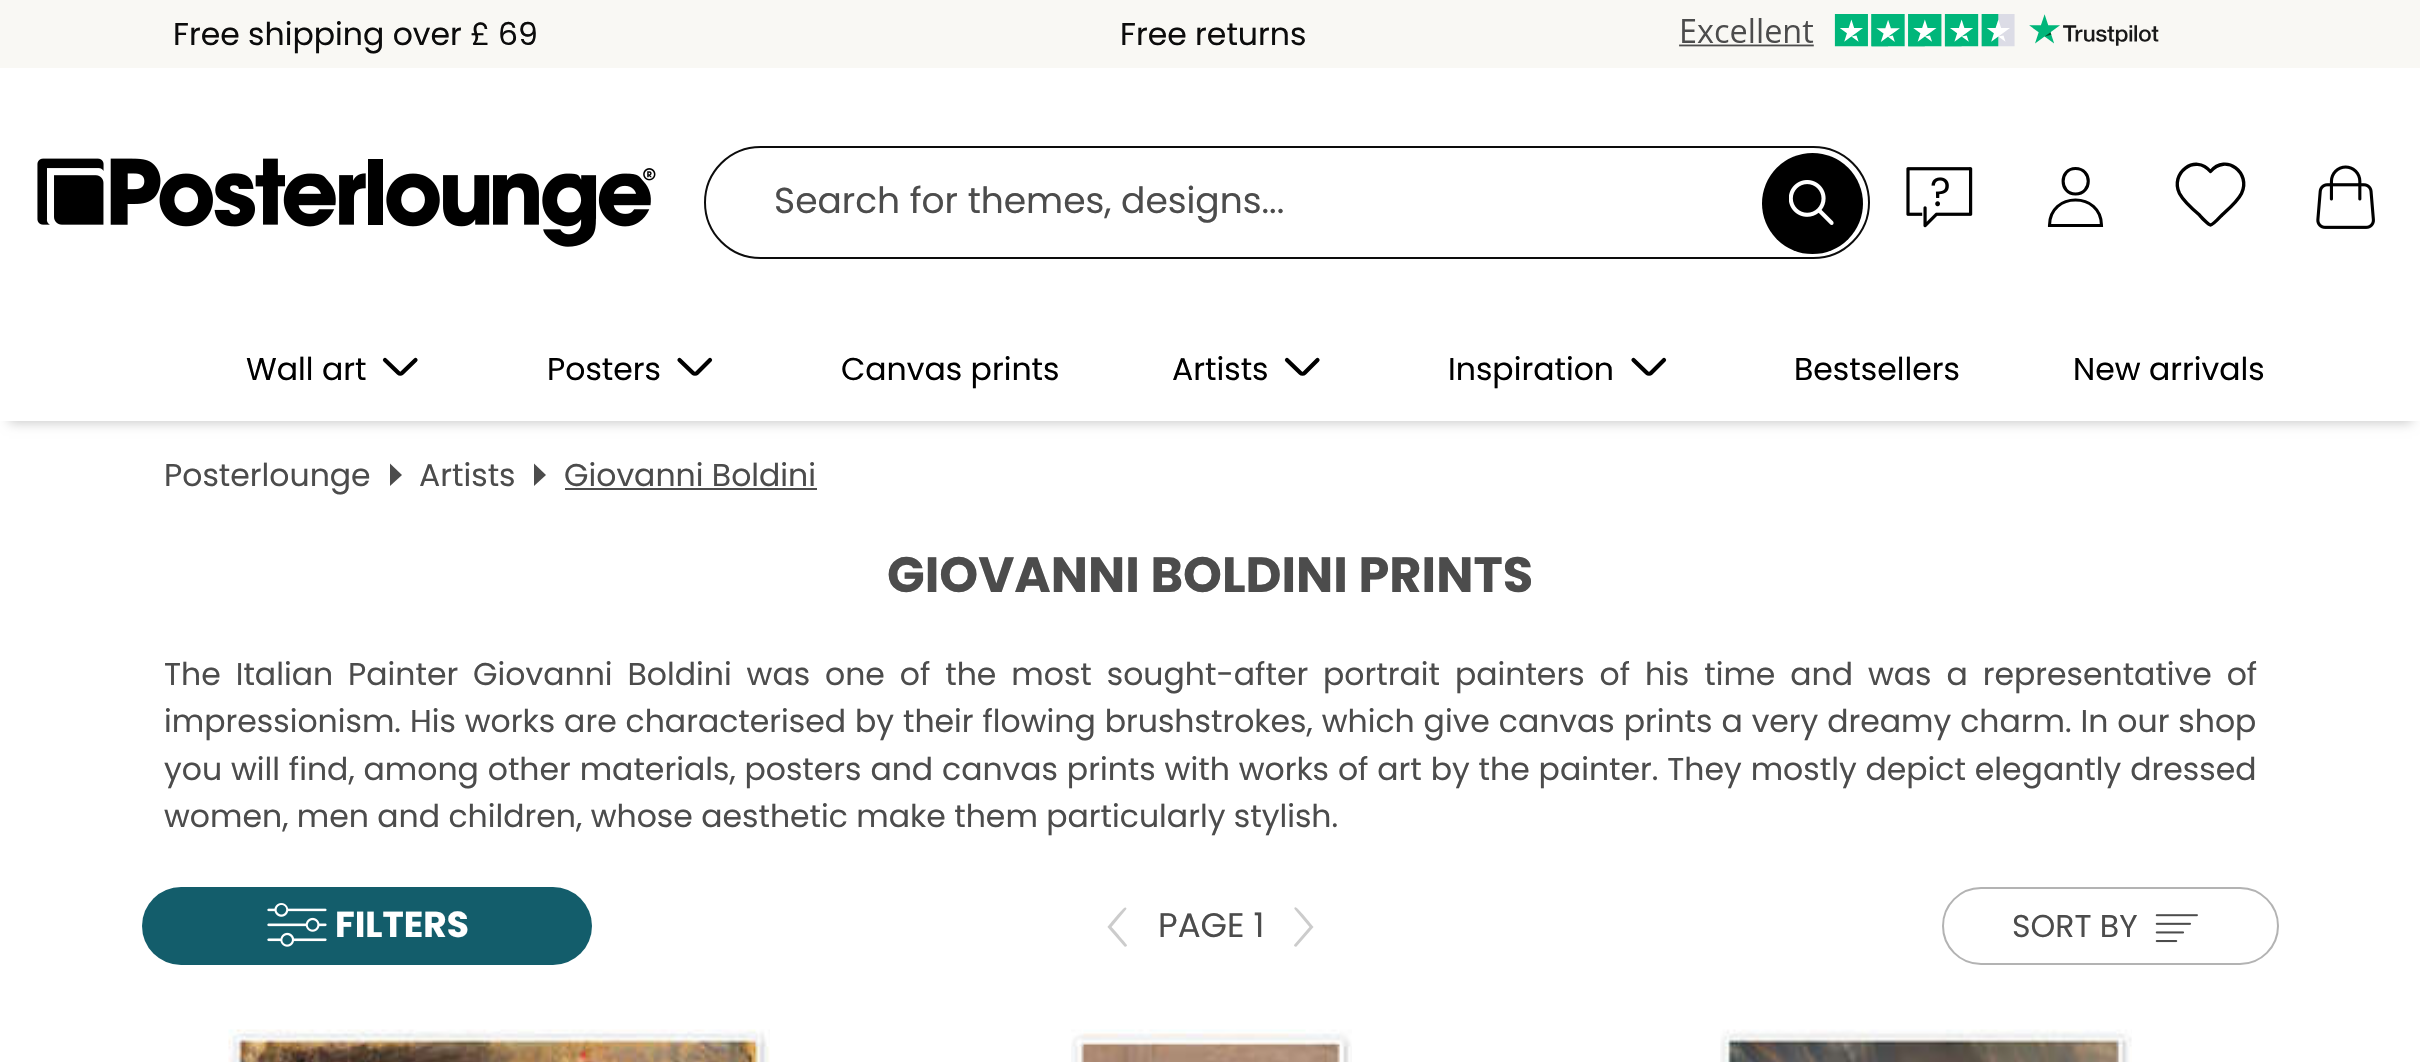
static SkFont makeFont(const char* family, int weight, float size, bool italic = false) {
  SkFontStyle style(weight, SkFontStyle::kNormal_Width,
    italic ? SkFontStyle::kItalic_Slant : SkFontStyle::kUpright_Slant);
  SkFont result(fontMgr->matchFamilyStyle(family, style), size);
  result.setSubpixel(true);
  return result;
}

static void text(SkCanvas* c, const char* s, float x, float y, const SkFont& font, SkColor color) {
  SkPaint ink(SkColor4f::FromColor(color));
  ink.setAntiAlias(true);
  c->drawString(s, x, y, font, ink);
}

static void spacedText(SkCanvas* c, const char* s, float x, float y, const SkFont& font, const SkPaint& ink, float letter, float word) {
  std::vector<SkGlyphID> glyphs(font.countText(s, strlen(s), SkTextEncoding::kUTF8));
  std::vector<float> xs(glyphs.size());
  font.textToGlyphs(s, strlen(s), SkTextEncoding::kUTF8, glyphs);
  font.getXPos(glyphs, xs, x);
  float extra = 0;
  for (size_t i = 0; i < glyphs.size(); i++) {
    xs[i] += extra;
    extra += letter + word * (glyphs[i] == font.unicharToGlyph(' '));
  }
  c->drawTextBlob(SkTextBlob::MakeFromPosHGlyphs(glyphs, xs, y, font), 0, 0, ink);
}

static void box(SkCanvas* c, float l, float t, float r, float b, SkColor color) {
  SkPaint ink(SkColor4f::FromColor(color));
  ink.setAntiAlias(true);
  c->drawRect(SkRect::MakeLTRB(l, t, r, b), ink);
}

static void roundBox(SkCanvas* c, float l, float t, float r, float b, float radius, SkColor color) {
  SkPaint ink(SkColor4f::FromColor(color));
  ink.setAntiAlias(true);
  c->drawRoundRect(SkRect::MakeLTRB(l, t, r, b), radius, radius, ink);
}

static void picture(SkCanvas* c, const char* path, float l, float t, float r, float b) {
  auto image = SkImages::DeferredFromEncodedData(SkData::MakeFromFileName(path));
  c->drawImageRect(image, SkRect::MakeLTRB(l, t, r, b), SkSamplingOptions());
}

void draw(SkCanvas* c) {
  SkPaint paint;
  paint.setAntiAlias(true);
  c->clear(0xffffffff);
  paint.setColor(0x33000000);
  paint.setMaskFilter(SkMaskFilter::MakeBlur(kNormal_SkBlurStyle, 5.5f));
  c->drawRect(SkRect::MakeLTRB(9, 20, 2412, 423), paint);
  paint.setMaskFilter(nullptr);
  box(c, 0, 68, 2420, 421, 0xffffffff);
  box(c, 0, 0, 2420, 68, 0xfff9f8f4);
  SkFont face1 = makeFont("Poppins", 400, 31.5f);
  text(c, "Free shipping over £ 69", 173, 45, face1, 0xff0c0c0c);
  text(c, "Free returns", 1120, 45, face1, 0xff0c0c0c);
  picture(c, "img_01.png", 1679, 14, 2159, 47);
  picture(c, "img_02.png", 37, 158, 656, 247);
  paint.setStyle(SkPaint::kStroke_Style);
  paint.setStrokeWidth(2);
  paint.setColor(0xff0c0c0c);
  c->drawRoundRect(SkRect::MakeLTRB(705, 147, 1869, 258), 55.5f, 55.5f, paint);
  SkFont face2 = makeFont("Poppins", 400, 36);
  text(c, "Search for themes, designs...", 774, 213, face2, 0xff4c4c4c);
  paint.setStyle(SkPaint::kFill_Style);
  paint.setColor(0xff000000);
  c->drawCircle(1812.5f, 203.5f, 50.5f, paint);
  picture(c, "img_03.png", 1789, 180, 1834, 225);
  picture(c, "img_04.png", 1906, 167, 1973, 228);
  paint.setStyle(SkPaint::kStroke_Style);
  paint.setStrokeWidth(3.1f);
  c->drawPath(SkPathBuilder().moveTo(2075.5f, 194).cubicTo(2092.5f, 194, 2092.5f, 168.5f, 2075.5f, 168.5f).cubicTo(2059, 168.5f, 2059, 194, 2075.5f, 194).close().moveTo(2101.5f, 225.5f).cubicTo(2101.5f, 191.5f, 2049.5f, 191.5f, 2049.5f, 225.5f).close().detach(), paint);
  paint.setStrokeWidth(3.4f);
  paint.setStrokeCap(SkPaint::kRound_Cap);
  paint.setStrokeJoin(SkPaint::kRound_Join);
  c->drawPath(SkPathBuilder().moveTo(2210.5f, 171.5f).cubicTo(2195, 153, 2169.5f, 173.5f, 2179.5f, 193.5f).cubicTo(2183.5f, 201, 2193, 209.5f, 2199.5f, 215).cubicTo(2200.5f, 216.5f, 2208.5f, 225, 2210.5f, 225).cubicTo(2213, 225, 2220.5f, 216.5f, 2222, 215).cubicTo(2228.5f, 209, 2237.5f, 201.5f, 2241.5f, 193.5f).cubicTo(2251.5f, 173, 2226, 153, 2210.5f, 171.5f).close().detach(), paint);
  picture(c, "img_05.png", 2316, 165, 2375, 229);
  text(c, "Wall art", 246, 380, face1, 0xff000000);
  paint.setStrokeWidth(4.2f);
  paint.setStrokeJoin(SkPaint::kMiter_Join);
  c->drawPath(SkPathBuilder().moveTo(385, 360).lineTo(398.5f, 373).cubicTo(399.5f, 374, 401, 374, 402, 373).lineTo(415.5f, 360).detach(), paint);
  text(c, "Posters", 547, 380, face1, 0xff000000);
  c->drawPath(SkPathBuilder().moveTo(679.5f, 360).lineTo(693, 373).cubicTo(694, 374, 696, 374, 697, 373).lineTo(710, 360).detach(), paint);
  text(c, "Canvas prints", 841, 380, face1, 0xff000000);
  text(c, "Artists", 1172, 380, face1, 0xff000000);
  c->drawPath(SkPathBuilder().moveTo(1287, 360).lineTo(1300.5f, 373).cubicTo(1301.5f, 374, 1303.5f, 374, 1304.5f, 373).lineTo(1317.5f, 360).detach(), paint);
  text(c, "Inspiration", 1448, 380, face1, 0xff000000);
  c->drawPath(SkPathBuilder().moveTo(1633.5f, 360).lineTo(1647, 373).cubicTo(1648, 374, 1650, 374, 1651, 373).lineTo(1664, 360).detach(), paint);
  text(c, "Bestsellers", 1794, 380, face1, 0xff000000);
  text(c, "New arrivals", 2073, 380, face1, 0xff000000);
  text(c, "Posterlounge", 164, 486, face1, 0xff4c4c4c);
  paint.setStyle(SkPaint::kFill_Style);
  paint.setColor(0xff4c4c4c);
  c->drawPath(SkPathBuilder().moveTo(390, 463.5f).lineTo(390, 486).lineTo(402, 475).close().detach(), paint);
  text(c, "Artists", 419, 486, face1, 0xff4c4c4c);
  c->drawPath(SkPathBuilder().moveTo(534, 463.5f).lineTo(534, 486).lineTo(546, 475).close().detach(), paint);
  text(c, "Giovanni Boldini", 564, 486, face1, 0xff4c4c4c);
  box(c, 565, 488, 817, 490, 0xff4c4c4c);
  SkFont face3 = makeFont("Poppins", 700, 49.5f);
  text(c, "GIOVANNI BOLDINI PRINTS", 887, 592, face3, 0xff4c4c4c);
  spacedText(c, "The Italian Painter Giovanni Boldini was one of the most sought-after portrait painters of his time and was a representative of", 164, 685, face1, paint, 0, 6.5f);
  spacedText(c, "impressionism. His works are characterised by their flowing brushstrokes, which give canvas prints a very dreamy charm. In our shop", 164, 732, face1, paint, 0, 0.5f);
  spacedText(c, "you will find, among other materials, posters and canvas prints with works of art by the painter. They mostly depict elegantly dressed", 164, 780, face1, paint, 0, 0.45f);
  text(c, "women, men and children, whose aesthetic make them particularly stylish.", 164, 827, face1, 0xff4c4c4c);
  roundBox(c, 142, 887, 592, 965, 39, 0xff135d6b);
  picture(c, "img_06.png", 267, 903, 327, 947);
  SkFont face4 = makeFont("Poppins", 700, 36);
  text(c, "FILTERS", 335, 937, face4, 0xffffffff);
  paint.setColor(0xffcccccc);
  c->drawPath(SkPathBuilder().moveTo(1107.5f, 927).cubicTo(1109.5f, 924.5f, 1123.5f, 907.5f, 1125, 907.5f).cubicTo(1126, 907, 1127, 908.5f, 1126, 909.5f).lineTo(1111.5f, 927).cubicTo(1113.5f, 929, 1126.5f, 944, 1127, 945).cubicTo(1127, 946.5f, 1125.5f, 947, 1124.5f, 946.5f).close().detach(), paint);
  SkFont face5 = makeFont("Poppins", 400, 34);
  text(c, "PAGE 1", 1158, 937, face5, 0xff4c4c4c);
  c->drawPath(SkPathBuilder().moveTo(1296.5f, 946.5f).cubicTo(1295.5f, 947, 1294, 946.5f, 1294, 945).lineTo(1309.5f, 927).lineTo(1294.5f, 909).cubicTo(1294, 908, 1295, 907, 1296, 907.5f).cubicTo(1297.5f, 907.5f, 1311.5f, 924.5f, 1313.5f, 927).close().detach(), paint);
  paint.setStyle(SkPaint::kStroke_Style);
  paint.setStrokeWidth(2);
  paint.setStrokeCap(SkPaint::kButt_Cap);
  paint.setColor(0xffb3b3b3);
  c->drawRoundRect(SkRect::MakeLTRB(1943, 888, 2278, 964), 38, 38, paint);
  text(c, "SORT BY", 2012, 937, face1, 0xff4c4c4c);
  picture(c, "img_07.png", 2155, 914, 2198, 943);
  picture(c, "img_08.png", 228, 1029, 770, 1062);
  picture(c, "img_09.png", 1071, 1029, 1352, 1062);
  picture(c, "img_10.png", 1720, 1029, 2132, 1062);
}
